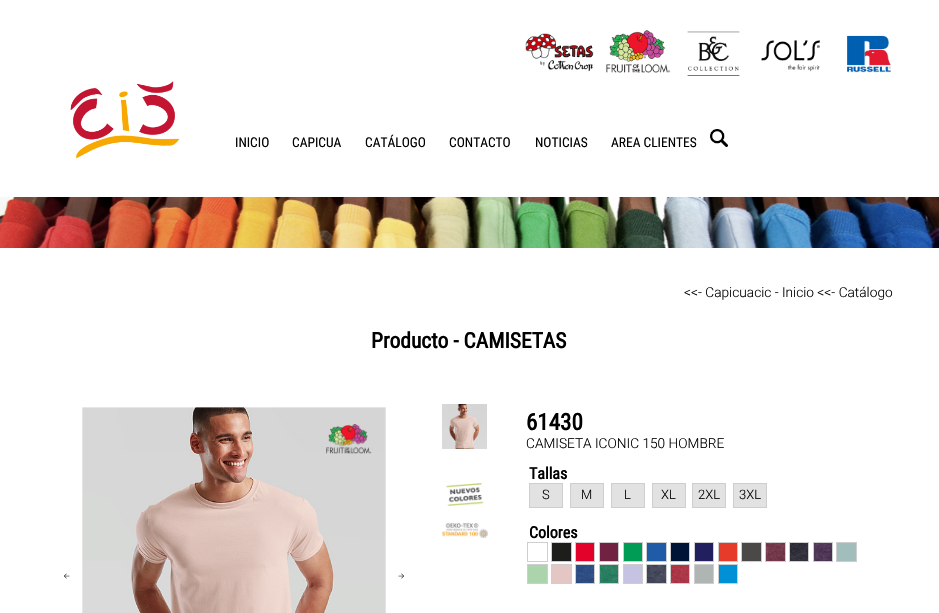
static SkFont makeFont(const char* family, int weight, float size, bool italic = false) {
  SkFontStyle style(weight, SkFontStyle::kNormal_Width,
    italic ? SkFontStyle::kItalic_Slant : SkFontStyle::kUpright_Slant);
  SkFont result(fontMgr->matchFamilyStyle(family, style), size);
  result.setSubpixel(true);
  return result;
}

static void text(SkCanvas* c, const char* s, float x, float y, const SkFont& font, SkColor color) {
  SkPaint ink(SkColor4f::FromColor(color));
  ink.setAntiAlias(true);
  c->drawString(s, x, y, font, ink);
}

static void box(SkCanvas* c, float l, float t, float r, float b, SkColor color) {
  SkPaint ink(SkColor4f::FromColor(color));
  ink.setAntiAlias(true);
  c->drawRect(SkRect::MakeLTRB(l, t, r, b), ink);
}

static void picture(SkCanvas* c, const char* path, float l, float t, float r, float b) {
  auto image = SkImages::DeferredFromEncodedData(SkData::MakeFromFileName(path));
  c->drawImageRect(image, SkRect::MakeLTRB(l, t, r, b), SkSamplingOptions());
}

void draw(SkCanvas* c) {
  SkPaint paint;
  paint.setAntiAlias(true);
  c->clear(0xffffffff);
  picture(c, "img_01.png", 525, 33, 594, 72);
  picture(c, "img_02.png", 606, 30, 671, 73);
  picture(c, "img_03.png", 687, 31, 740, 76);
  picture(c, "img_04.png", 761, 40, 820, 72);
  picture(c, "img_05.png", 847, 35, 891, 73);
  picture(c, "img_06.png", 70, 81, 180, 159);
  SkFont face1 = makeFont("Roboto Condensed", 400, 13.5f);
  text(c, "INICIO", 235, 147, face1, 0xff000000);
  text(c, "CAPICUA", 292, 147, face1, 0xff000000);
  text(c, "CATÁLOGO", 365, 147, face1, 0xff000000);
  text(c, "CONTACTO", 449, 147, face1, 0xff000000);
  text(c, "NOTICIAS", 535, 147, face1, 0xff000000);
  text(c, "AREA CLIENTES", 611, 147, face1, 0xff000000);
  picture(c, "img_07.png", 710, 129, 728, 147);
  picture(c, "img_08.png", 0, 197, 939, 248);
  SkFont face2 = makeFont("Roboto", 300, 13.7f);
  text(c, "<<- Capicuacic - Inicio <<- Catálogo", 684, 297, face2, 0xff000000);
  SkFont face3 = makeFont("Roboto Condensed", 700, 21.5f);
  text(c, "Producto - CAMISETAS", 371, 348, face3, 0xff000000);
  picture(c, "img_09.png", 82, 407, 386, 613);
  picture(c, "img_10.png", 326, 424, 372, 454);
  picture(c, "img_11.png", 64, 573, 70, 579);
  picture(c, "img_12.png", 398, 573, 404, 579);
  picture(c, "img_13.png", 442, 404, 487, 449);
  picture(c, "img_14.png", 446, 483, 484, 506);
  picture(c, "img_15.png", 442, 523, 488, 538);
  SkFont face4 = makeFont("Roboto Condensed", 700, 23);
  text(c, "61430", 526, 430, face4, 0xff000000);
  text(c, "CAMISETA ICONIC 150 HOMBRE", 526, 448, face2, 0xff000000);
  SkFont face5 = makeFont("Roboto Condensed", 700, 16);
  text(c, "Tallas", 529, 479, face5, 0xff000000);
  paint.setColor(0xffe2e2e2);
  c->drawRect(SkRect::MakeLTRB(529.5f, 483.5f, 562.5f, 507.5f), paint);
  paint.setStyle(SkPaint::kStroke_Style);
  paint.setStrokeWidth(1);
  paint.setColor(0xffcecece);
  c->drawRect(SkRect::MakeLTRB(529.5f, 483.5f, 562.5f, 507.5f), paint);
  SkFont face6 = makeFont("Roboto", 300, 13);
  text(c, "S", 542, 499, face6, 0xff000000);
  paint.setStyle(SkPaint::kFill_Style);
  paint.setColor(0xffe2e2e2);
  c->drawRect(SkRect::MakeLTRB(570.5f, 483.5f, 603.5f, 507.5f), paint);
  paint.setStyle(SkPaint::kStroke_Style);
  paint.setColor(0xffcecece);
  c->drawRect(SkRect::MakeLTRB(570.5f, 483.5f, 603.5f, 507.5f), paint);
  text(c, "M", 581, 499, face6, 0xff000000);
  paint.setStyle(SkPaint::kFill_Style);
  paint.setColor(0xffe2e2e2);
  c->drawRect(SkRect::MakeLTRB(611.5f, 483.5f, 644.5f, 507.5f), paint);
  paint.setStyle(SkPaint::kStroke_Style);
  paint.setColor(0xffcecece);
  c->drawRect(SkRect::MakeLTRB(611.5f, 483.5f, 644.5f, 507.5f), paint);
  text(c, "L", 624, 499, face6, 0xff000000);
  paint.setStyle(SkPaint::kFill_Style);
  paint.setColor(0xffe2e2e2);
  c->drawRect(SkRect::MakeLTRB(652.5f, 483.5f, 685.5f, 507.5f), paint);
  paint.setStyle(SkPaint::kStroke_Style);
  paint.setColor(0xffcecece);
  c->drawRect(SkRect::MakeLTRB(652.5f, 483.5f, 685.5f, 507.5f), paint);
  text(c, "XL", 661, 499, face6, 0xff000000);
  paint.setStyle(SkPaint::kFill_Style);
  paint.setColor(0xffe2e2e2);
  c->drawRect(SkRect::MakeLTRB(692.5f, 483.5f, 725.5f, 507.5f), paint);
  paint.setStyle(SkPaint::kStroke_Style);
  paint.setColor(0xffcecece);
  c->drawRect(SkRect::MakeLTRB(692.5f, 483.5f, 725.5f, 507.5f), paint);
  text(c, "2XL", 698, 499, face6, 0xff000000);
  paint.setStyle(SkPaint::kFill_Style);
  paint.setColor(0xffe2e2e2);
  c->drawRect(SkRect::MakeLTRB(733.5f, 483.5f, 766.5f, 507.5f), paint);
  paint.setStyle(SkPaint::kStroke_Style);
  paint.setColor(0xffcecece);
  c->drawRect(SkRect::MakeLTRB(733.5f, 483.5f, 766.5f, 507.5f), paint);
  text(c, "3XL", 739, 499, face6, 0xff000000);
  text(c, "Colores", 529, 538, face5, 0xff000000);
  c->drawRect(SkRect::MakeLTRB(527.5f, 542.5f, 547.5f, 561.5f), paint);
  c->drawRect(SkRect::MakeLTRB(551.5f, 542.5f, 571.5f, 561.5f), paint);
  box(c, 552, 543, 571, 561, 0xff1d1d1b);
  c->drawRect(SkRect::MakeLTRB(575.5f, 542.5f, 594.5f, 561.5f), paint);
  box(c, 576, 543, 594, 561, 0xffe3022a);
  c->drawRect(SkRect::MakeLTRB(599.5f, 542.5f, 618.5f, 561.5f), paint);
  box(c, 600, 543, 618, 561, 0xff712242);
  c->drawRect(SkRect::MakeLTRB(623.5f, 542.5f, 642.5f, 561.5f), paint);
  box(c, 624, 543, 642, 561, 0xff009c55);
  c->drawRect(SkRect::MakeLTRB(646.5f, 542.5f, 666.5f, 561.5f), paint);
  box(c, 647, 543, 666, 561, 0xff205ba7);
  c->drawRect(SkRect::MakeLTRB(670.5f, 542.5f, 689.5f, 561.5f), paint);
  box(c, 671, 543, 689, 561, 0xff001437);
  c->drawRect(SkRect::MakeLTRB(694.5f, 542.5f, 713.5f, 561.5f), paint);
  box(c, 695, 543, 713, 561, 0xff211f5e);
  c->drawRect(SkRect::MakeLTRB(718.5f, 542.5f, 737.5f, 561.5f), paint);
  box(c, 719, 543, 737, 561, 0xffe63b2a);
  c->drawRect(SkRect::MakeLTRB(741.5f, 542.5f, 761.5f, 561.5f), paint);
  box(c, 742, 543, 761, 561, 0xff4a4947);
  c->drawRect(SkRect::MakeLTRB(765.5f, 542.5f, 785.5f, 561.5f), paint);
  picture(c, "img_16.png", 766, 543, 785, 561);
  c->drawRect(SkRect::MakeLTRB(789.5f, 542.5f, 808.5f, 561.5f), paint);
  picture(c, "img_17.png", 790, 543, 808, 561);
  c->drawRect(SkRect::MakeLTRB(813.5f, 542.5f, 832.5f, 561.5f), paint);
  picture(c, "img_18.png", 814, 543, 832, 561);
  c->drawRect(SkRect::MakeLTRB(836.5f, 542.5f, 856.5f, 561.5f), paint);
  box(c, 837, 543, 856, 561, 0xffa1bebc);
  c->drawRect(SkRect::MakeLTRB(527.5f, 564.5f, 547.5f, 583.5f), paint);
  box(c, 528, 565, 547, 583, 0xffabd4ac);
  c->drawRect(SkRect::MakeLTRB(551.5f, 564.5f, 571.5f, 583.5f), paint);
  box(c, 552, 565, 571, 583, 0xffe4c6c4);
  c->drawRect(SkRect::MakeLTRB(575.5f, 564.5f, 594.5f, 583.5f), paint);
  picture(c, "img_19.png", 576, 565, 594, 583);
  c->drawRect(SkRect::MakeLTRB(599.5f, 564.5f, 618.5f, 583.5f), paint);
  picture(c, "img_20.png", 600, 565, 618, 583);
  c->drawRect(SkRect::MakeLTRB(623.5f, 564.5f, 642.5f, 583.5f), paint);
  box(c, 624, 565, 642, 583, 0xffc6c2e2);
  c->drawRect(SkRect::MakeLTRB(646.5f, 564.5f, 666.5f, 583.5f), paint);
  picture(c, "img_21.png", 647, 565, 666, 583);
  c->drawRect(SkRect::MakeLTRB(670.5f, 564.5f, 689.5f, 583.5f), paint);
  picture(c, "img_22.png", 671, 565, 689, 583);
  c->drawRect(SkRect::MakeLTRB(694.5f, 564.5f, 713.5f, 583.5f), paint);
  box(c, 695, 565, 713, 583, 0xffafb5b3);
  c->drawRect(SkRect::MakeLTRB(718.5f, 564.5f, 737.5f, 583.5f), paint);
  box(c, 719, 565, 737, 583, 0xff0090d6);
}
